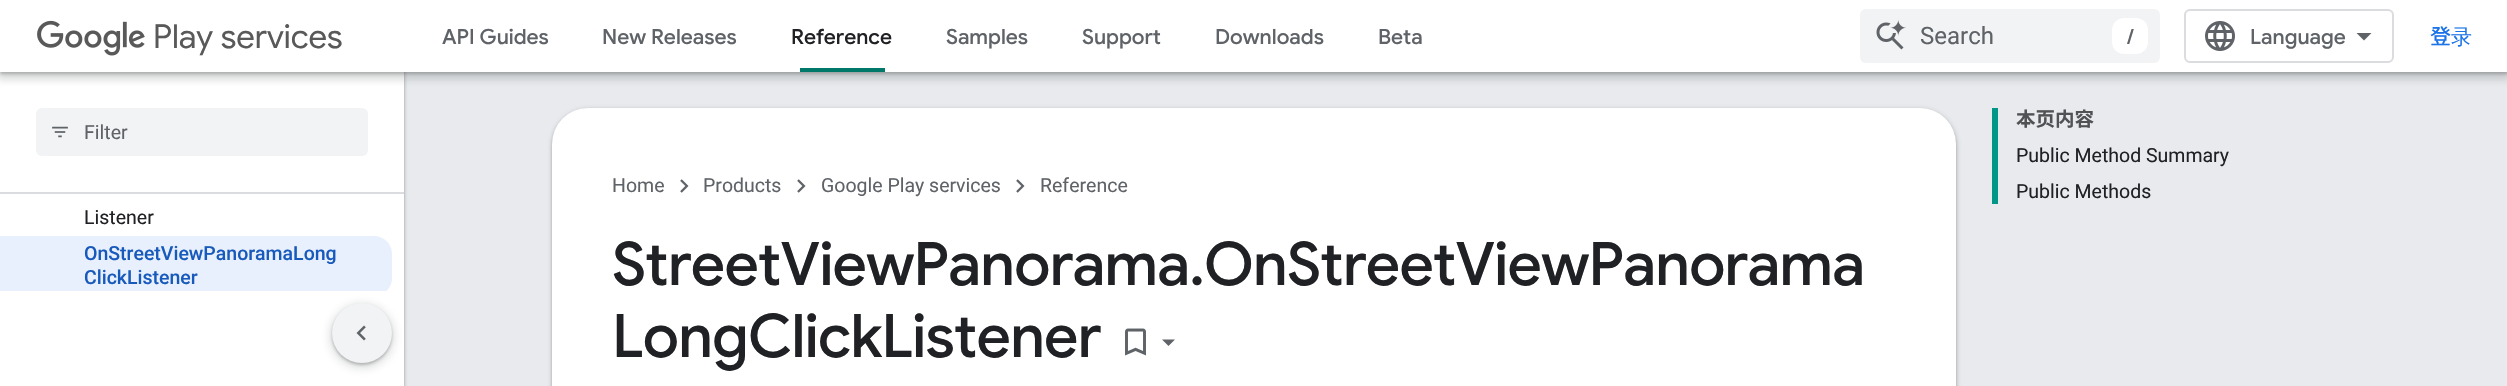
static SkFont makeFont(const char* family, int weight, float size, bool italic = false) {
  SkFontStyle style(weight, SkFontStyle::kNormal_Width,
    italic ? SkFontStyle::kItalic_Slant : SkFontStyle::kUpright_Slant);
  SkFont result(fontMgr->matchFamilyStyle(family, style), size);
  result.setSubpixel(true);
  return result;
}

static void text(SkCanvas* c, const char* s, float x, float y, const SkFont& font, SkColor color) {
  SkPaint ink(SkColor4f::FromColor(color));
  ink.setAntiAlias(true);
  c->drawString(s, x, y, font, ink);
}

static void spacedText(SkCanvas* c, const char* s, float x, float y, const SkFont& font, const SkPaint& ink, float letter, float word) {
  std::vector<SkGlyphID> glyphs(font.countText(s, strlen(s), SkTextEncoding::kUTF8));
  std::vector<float> xs(glyphs.size());
  font.textToGlyphs(s, strlen(s), SkTextEncoding::kUTF8, glyphs);
  font.getXPos(glyphs, xs, x);
  float extra = 0;
  for (size_t i = 0; i < glyphs.size(); i++) {
    xs[i] += extra;
    extra += letter + word * (glyphs[i] == font.unicharToGlyph(' '));
  }
  c->drawTextBlob(SkTextBlob::MakeFromPosHGlyphs(glyphs, xs, y, font), 0, 0, ink);
}

static void box(SkCanvas* c, float l, float t, float r, float b, SkColor color) {
  SkPaint ink(SkColor4f::FromColor(color));
  ink.setAntiAlias(true);
  c->drawRect(SkRect::MakeLTRB(l, t, r, b), ink);
}

static void roundBox(SkCanvas* c, float l, float t, float r, float b, float radius, SkColor color) {
  SkPaint ink(SkColor4f::FromColor(color));
  ink.setAntiAlias(true);
  c->drawRoundRect(SkRect::MakeLTRB(l, t, r, b), radius, radius, ink);
}

static void picture(SkCanvas* c, const char* path, float l, float t, float r, float b) {
  auto image = SkImages::DeferredFromEncodedData(SkData::MakeFromFileName(path));
  c->drawImageRect(image, SkRect::MakeLTRB(l, t, r, b), SkSamplingOptions());
}

void draw(SkCanvas* c) {
  SkPaint paint;
  paint.setAntiAlias(true);
  c->clear(0xffe8eaed);
  paint.setColor(0x263c4043);
  paint.setMaskFilter(SkMaskFilter::MakeBlur(kNormal_SkBlurStyle, 2));
  c->drawRect(SkRect::MakeLTRB(-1, 0, 405, 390), paint);
  paint.setMaskFilter(nullptr);
  paint.setColor(0x4d3c4043);
  paint.setMaskFilter(SkMaskFilter::MakeBlur(kNormal_SkBlurStyle, 1.5f));
  c->drawRect(SkRect::MakeLTRB(0, 2, 404, 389), paint);
  paint.setMaskFilter(nullptr);
  box(c, 0, 194, 404, 291, 0xffffffff);
  box(c, 0, 72, 404, 192, 0xffffffff);
  paint.setColor(0x263c4043);
  paint.setMaskFilter(SkMaskFilter::MakeBlur(kNormal_SkBlurStyle, 4.5f));
  c->drawRect(SkRect::MakeLTRB(-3, 0, 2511, 78), paint);
  paint.setMaskFilter(nullptr);
  paint.setColor(0x4d3c4043);
  paint.setMaskFilter(SkMaskFilter::MakeBlur(kNormal_SkBlurStyle, 1.5f));
  c->drawRect(SkRect::MakeLTRB(0, 2, 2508, 74), paint);
  paint.setMaskFilter(nullptr);
  paint.setColor(0x263c4043);
  paint.setMaskFilter(SkMaskFilter::MakeBlur(kNormal_SkBlurStyle, 4.5f));
  c->drawRect(SkRect::MakeLTRB(-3, 72, 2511, 78), paint);
  paint.setMaskFilter(nullptr);
  box(c, 0, 0, 2507, 72, 0xffffffff);
  picture(c, "img_01.png", 37, 20, 145, 56);
  SkFont face1 = makeFont("Google Sans", 400, 33);
  text(c, "Play services", 153, 48, face1, 0xff595959);
  SkFont face2 = makeFont("Google Sans", 500, 21);
  text(c, "API Guides", 442, 44, face2, 0xff5f6368);
  text(c, "New Releases", 602, 44, face2, 0xff5f6368);
  text(c, "Reference", 791, 44, face2, 0xff202124);
  box(c, 800, 68, 885, 72, 0xff00796b);
  text(c, "Samples", 946, 44, face2, 0xff5f6368);
  text(c, "Support", 1082, 44, face2, 0xff5f6368);
  text(c, "Downloads", 1215, 44, face2, 0xff5f6368);
  text(c, "Beta", 1378, 44, face2, 0xff5f6368);
  roundBox(c, 1860, 9, 2160, 63, 6, 0xfff1f3f4);
  picture(c, "img_02.png", 1876, 20, 1906, 50);
  SkFont face3 = makeFont("Roboto", 400, 24);
  text(c, "Search", 1920, 44, face3, 0xff5f6368);
  roundBox(c, 2112, 18, 2148, 54, 12, 0xffffffff);
  text(c, "/", 2127, 44, face2, 0xff5f6368);
  paint.setStyle(SkPaint::kStroke_Style);
  paint.setStrokeWidth(2);
  paint.setColor(0xffdadce0);
  c->drawRoundRect(SkRect::MakeLTRB(2185, 10, 2393, 62), 5, 5, paint);
  picture(c, "img_03.png", 2205, 21, 2235, 51);
  text(c, "Language", 2250, 44, face2, 0xff5f6368);
  paint.setStyle(SkPaint::kFill_Style);
  paint.setColor(0xff5f6368);
  c->drawPath(SkPathBuilder().moveTo(2364, 40.5f).lineTo(2356.5f, 33).lineTo(2371.5f, 33).close().detach(), paint);
  SkFont face4 = makeFont("Noto Sans JP", 500, 21);
  text(c, "登", 2430, 44, face4, 0xff1a73e8);
  SkFont face5 = makeFont("WenQuanYi Zen Hei", 500, 21);
  text(c, "录", 2451, 44, face5, 0xff1a73e8);
  box(c, 0, 192, 404, 194, 0xffdadce0);
  roundBox(c, 36, 108, 368, 156, 6, 0xfff1f3f4);
  picture(c, "img_04.png", 52, 126, 68, 138);
  SkFont face6 = makeFont("Roboto", 400, 19.5f);
  text(c, "Filter", 84, 139, face6, 0xff5f6368);
  text(c, "Listener", 84, 224, face6, 0xff202124);
  paint.setColor(0xffe8f0fe);
  c->drawPath(SkPathBuilder().moveTo(0, 236).lineTo(374, 236).cubicTo(384, 236, 392, 244, 392, 254).lineTo(392, 278).cubicTo(392, 288, 384, 296, 374, 296).lineTo(0, 296).close().detach(), paint);
  SkFont face7 = makeFont("Roboto", 500, 19.5f);
  text(c, "OnStreetViewPanoramaLong", 84, 260, face7, 0xff185abc);
  text(c, "ClickListener", 84, 284, face7, 0xff185abc);
  box(c, 1992, 108, 1998, 204, 0xff009688);
  SkFont face8 = makeFont("Noto Sans JP", 700, 19.5f);
  text(c, "本页内容", 2016, 126, face8, 0xff515253);
  text(c, "Public Method Summary", 2016, 162, face6, 0xff202124);
  text(c, "Public Methods", 2016, 198, face6, 0xff202124);
  paint.setColor(0x263c4043);
  paint.setMaskFilter(SkMaskFilter::MakeBlur(kNormal_SkBlurStyle, 2));
  c->drawRoundRect(SkRect::MakeLTRB(551, 108, 1958, 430), 38, 38, paint);
  paint.setMaskFilter(nullptr);
  paint.setColor(0x4d3c4043);
  paint.setMaskFilter(SkMaskFilter::MakeBlur(kNormal_SkBlurStyle, 1.5f));
  c->drawRoundRect(SkRect::MakeLTRB(552, 110, 1956, 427), 36, 36, paint);
  paint.setMaskFilter(nullptr);
  roundBox(c, 552, 108, 1956, 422, 36, 0xffffffff);
  text(c, "Home", 612, 192, face6, 0xff5f6368);
  picture(c, "img_05.png", 680, 179, 689, 193);
  text(c, "Products", 703, 192, face6, 0xff5f6368);
  picture(c, "img_05.png", 797, 179, 806, 193);
  text(c, "Google Play services", 821, 192, face6, 0xff5f6368);
  picture(c, "img_05.png", 1016, 179, 1025, 193);
  text(c, "Reference", 1040, 192, face6, 0xff5f6368);
  SkFont face9 = makeFont("Google Sans", 500, 60);
  paint.setColor(0xff202124);
  spacedText(c, "StreetViewPanorama.OnStreetViewPanorama", 612, 285, face9, paint, -0.75f, 0);
  spacedText(c, "LongClickListener", 612, 357, face9, paint, -0.75f, 0);
  picture(c, "img_06.png", 1125, 328, 1146, 356);
  paint.setColor(0xff5f6368);
  c->drawPath(SkPathBuilder().moveTo(1162, 339.5f).lineTo(1175, 339.5f).lineTo(1168.5f, 346).close().detach(), paint);
  box(c, 0, 291, 404, 386, 0xffffffff);
  paint.setColor(0x263c4043);
  paint.setMaskFilter(SkMaskFilter::MakeBlur(kNormal_SkBlurStyle, 4.5f));
  c->drawRoundRect(SkRect::MakeLTRB(329, 303, 395, 369), 33, 33, paint);
  paint.setMaskFilter(nullptr);
  paint.setColor(0x4d3c4043);
  paint.setMaskFilter(SkMaskFilter::MakeBlur(kNormal_SkBlurStyle, 1.5f));
  c->drawRoundRect(SkRect::MakeLTRB(332, 305, 392, 365), 30, 30, paint);
  paint.setMaskFilter(nullptr);
  paint.setColor(0xfff1f3f4);
  c->drawCircle(362, 333, 30, paint);
  picture(c, "img_07.png", 356, 325, 366, 341);
}
